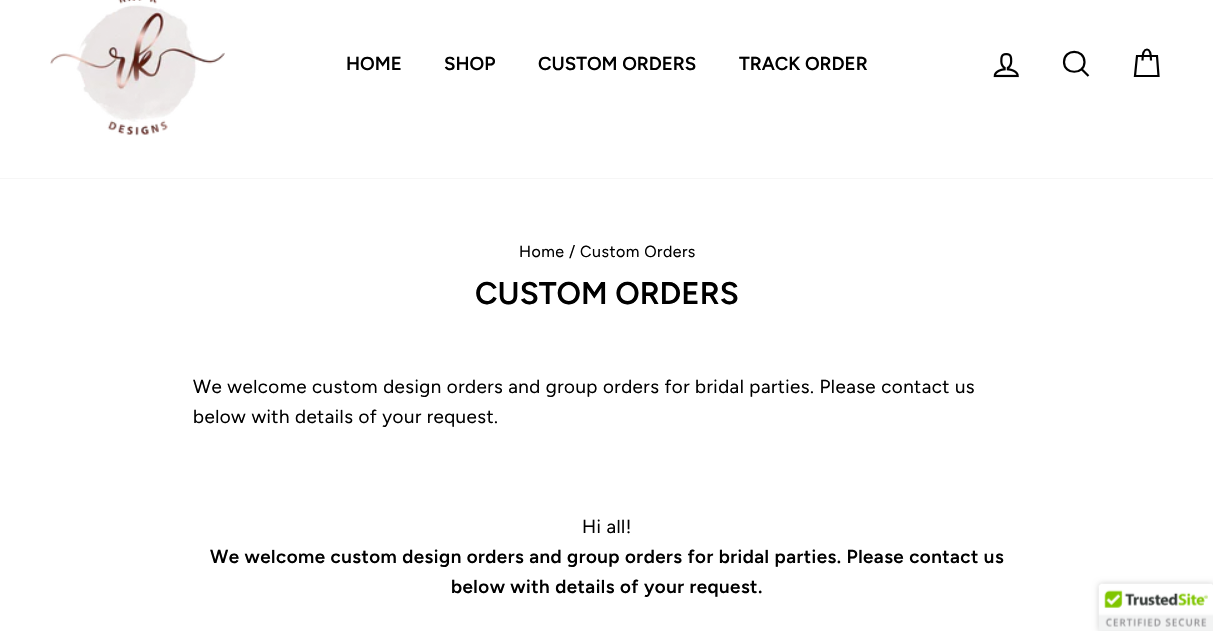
static SkFont makeFont(const char* family, int weight, float size, bool italic = false) {
  SkFontStyle style(weight, SkFontStyle::kNormal_Width,
    italic ? SkFontStyle::kItalic_Slant : SkFontStyle::kUpright_Slant);
  SkFont result(fontMgr->matchFamilyStyle(family, style), size);
  result.setSubpixel(true);
  return result;
}

static void text(SkCanvas* c, const char* s, float x, float y, const SkFont& font, SkColor color) {
  SkPaint ink(SkColor4f::FromColor(color));
  ink.setAntiAlias(true);
  c->drawString(s, x, y, font, ink);
}

static void spacedText(SkCanvas* c, const char* s, float x, float y, const SkFont& font, const SkPaint& ink, float letter, float word) {
  std::vector<SkGlyphID> glyphs(font.countText(s, strlen(s), SkTextEncoding::kUTF8));
  std::vector<float> xs(glyphs.size());
  font.textToGlyphs(s, strlen(s), SkTextEncoding::kUTF8, glyphs);
  font.getXPos(glyphs, xs, x);
  float extra = 0;
  for (size_t i = 0; i < glyphs.size(); i++) {
    xs[i] += extra;
    extra += letter + word * (glyphs[i] == font.unicharToGlyph(' '));
  }
  c->drawTextBlob(SkTextBlob::MakeFromPosHGlyphs(glyphs, xs, y, font), 0, 0, ink);
}

static void box(SkCanvas* c, float l, float t, float r, float b, SkColor color) {
  SkPaint ink(SkColor4f::FromColor(color));
  ink.setAntiAlias(true);
  c->drawRect(SkRect::MakeLTRB(l, t, r, b), ink);
}

static void picture(SkCanvas* c, const char* path, float l, float t, float r, float b) {
  auto image = SkImages::DeferredFromEncodedData(SkData::MakeFromFileName(path));
  c->drawImageRect(image, SkRect::MakeLTRB(l, t, r, b), SkSamplingOptions());
}

void draw(SkCanvas* c) {
  SkPaint paint;
  paint.setAntiAlias(true);
  c->clear(0xffffffff);
  paint.setColor(0x33000000);
  paint.setMaskFilter(SkMaskFilter::MakeBlur(kNormal_SkBlurStyle, 0.5f));
  c->drawRect(SkRect::MakeLTRB(0, -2, 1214, 178), paint);
  paint.setMaskFilter(nullptr);
  box(c, 0, 0, 1213, 178, 0xffffffff);
  picture(c, "img_01.png", 50, 0, 225, 136);
  SkFont face1 = makeFont("Figtree", 600, 18.75f);
  text(c, "HOME", 346, 70, face1, 0xff000000);
  text(c, "SHOP", 444, 70, face1, 0xff000000);
  text(c, "CUSTOM ORDERS", 538, 70, face1, 0xff000000);
  text(c, "TRACK ORDER", 739, 70, face1, 0xff000000);
  picture(c, "img_02.png", 993, 53, 1019, 78);
  paint.setStyle(SkPaint::kStroke_Style);
  paint.setStrokeWidth(2.2f);
  paint.setColor(0xff000000);
  c->drawPath(SkPathBuilder().moveTo(1084.5f, 62).cubicTo(1084.5f, 75, 1064, 75, 1064, 62).cubicTo(1064, 48.5f, 1084.5f, 48.5f, 1084.5f, 62).close().moveTo(1088.5f, 76).lineTo(1081.5f, 69).detach(), paint);
  c->drawPath(SkPathBuilder().moveTo(1142.5f, 60.5f).cubicTo(1142.5f, 52, 1144.5f, 49.5f, 1147, 49.5f).cubicTo(1149, 49.5f, 1151, 52, 1151, 60.5f).moveTo(1137, 56).lineTo(1157, 56).lineTo(1158.5f, 76).lineTo(1135, 76).close().detach(), paint);
  SkFont face2 = makeFont("Figtree", 400, 16);
  paint.setStyle(SkPaint::kFill_Style);
  spacedText(c, "Home / Custom Orders", 519, 257, face2, paint, 0.47f, 0);
  SkFont face3 = makeFont("Figtree", 600, 31.25f);
  text(c, "CUSTOM ORDERS", 475, 304, face3, 0xff000000);
  SkFont face4 = makeFont("Figtree", 400, 18.75f);
  spacedText(c, "We welcome custom design orders and group orders for bridal parties. Please contact us", 193, 393, face4, paint, 0.47f, 0);
  spacedText(c, "below with details of your request.", 193, 423, face4, paint, 0.47f, 0);
  spacedText(c, "Hi all!", 582, 533, face4, paint, 0.47f, 0);
  spacedText(c, "We welcome custom design orders and group orders for bridal parties. Please contact us", 210, 563, face1, paint, 0.47f, 0);
  spacedText(c, "below with details of your request.", 451, 593, face1, paint, 0.47f, 0);
  paint.setColor(0x33000000);
  paint.setMaskFilter(SkMaskFilter::MakeBlur(kNormal_SkBlurStyle, 3));
  c->drawRoundRect(SkRect::MakeLTRB(1099, 584, 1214, 631), 2.5f, 2.5f, paint);
  paint.setMaskFilter(nullptr);
  picture(c, "img_03.png", 1098, 583, 1213, 631);
}
